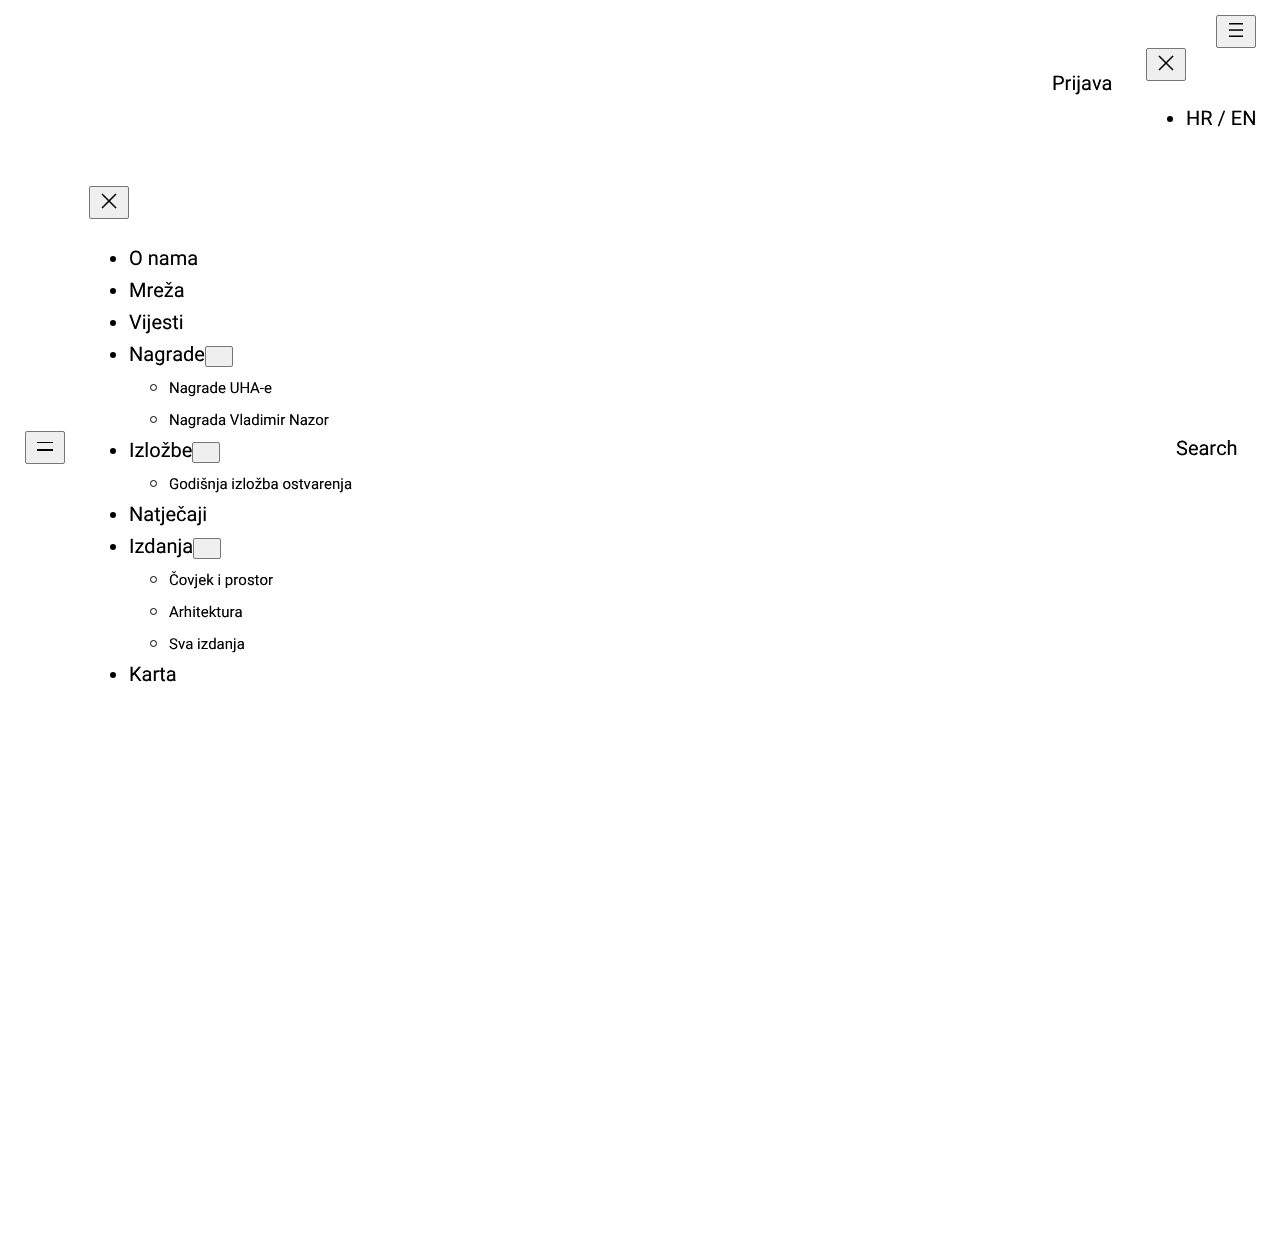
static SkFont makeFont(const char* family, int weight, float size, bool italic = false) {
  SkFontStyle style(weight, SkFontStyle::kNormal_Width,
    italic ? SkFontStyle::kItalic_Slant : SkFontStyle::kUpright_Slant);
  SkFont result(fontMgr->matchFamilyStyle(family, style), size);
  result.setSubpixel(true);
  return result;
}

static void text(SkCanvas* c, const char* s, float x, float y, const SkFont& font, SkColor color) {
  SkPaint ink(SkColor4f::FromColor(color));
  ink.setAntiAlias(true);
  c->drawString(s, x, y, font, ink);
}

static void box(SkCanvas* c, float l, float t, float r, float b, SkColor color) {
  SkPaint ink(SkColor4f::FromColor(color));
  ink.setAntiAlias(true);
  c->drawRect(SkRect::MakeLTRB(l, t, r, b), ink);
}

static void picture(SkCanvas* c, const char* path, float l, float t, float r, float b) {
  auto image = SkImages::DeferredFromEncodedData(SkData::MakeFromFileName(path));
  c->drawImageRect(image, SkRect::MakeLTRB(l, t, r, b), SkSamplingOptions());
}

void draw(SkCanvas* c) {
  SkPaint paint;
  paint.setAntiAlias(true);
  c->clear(0xffffffff);
  SkFont face1 = makeFont("Roboto", 400, 20);
  text(c, "Prijava", 1052, 90, face1, 0xff000000);
  paint.setColor(0xffefefef);
  c->drawRoundRect(SkRect::MakeLTRB(1216.5f, 15.5f, 1255.5f, 47.5f), 1.5f, 1.5f, paint);
  paint.setStyle(SkPaint::kStroke_Style);
  paint.setStrokeWidth(1);
  paint.setColor(0xff767676);
  c->drawRoundRect(SkRect::MakeLTRB(1216.5f, 15.5f, 1255.5f, 47.5f), 1.5f, 1.5f, paint);
  picture(c, "img_01.png", 1229, 23, 1243, 37);
  paint.setStyle(SkPaint::kFill_Style);
  paint.setColor(0xffefefef);
  c->drawRoundRect(SkRect::MakeLTRB(1146.5f, 48.5f, 1185.5f, 80.5f), 1.5f, 1.5f, paint);
  paint.setStyle(SkPaint::kStroke_Style);
  paint.setColor(0xff767676);
  c->drawRoundRect(SkRect::MakeLTRB(1146.5f, 48.5f, 1185.5f, 80.5f), 1.5f, 1.5f, paint);
  picture(c, "img_02.png", 1158, 55, 1174, 71);
  paint.setStyle(SkPaint::kFill_Style);
  paint.setColor(0xff000000);
  c->drawCircle(1170, 119, 3, paint);
  text(c, "HR / EN", 1186, 125, face1, 0xff000000);
  paint.setColor(0xffefefef);
  c->drawRoundRect(SkRect::MakeLTRB(25.5f, 431.5f, 64.5f, 463.5f), 1.5f, 1.5f, paint);
  paint.setStyle(SkPaint::kStroke_Style);
  paint.setColor(0xff767676);
  c->drawRoundRect(SkRect::MakeLTRB(25.5f, 431.5f, 64.5f, 463.5f), 1.5f, 1.5f, paint);
  box(c, 37, 442, 53, 443, 0xff000000);
  box(c, 37, 449, 53, 451, 0xff000000);
  paint.setStyle(SkPaint::kFill_Style);
  paint.setColor(0xffefefef);
  c->drawRoundRect(SkRect::MakeLTRB(89.5f, 186.5f, 128.5f, 218.5f), 1.5f, 1.5f, paint);
  paint.setStyle(SkPaint::kStroke_Style);
  paint.setColor(0xff767676);
  c->drawRoundRect(SkRect::MakeLTRB(89.5f, 186.5f, 128.5f, 218.5f), 1.5f, 1.5f, paint);
  picture(c, "img_02.png", 101, 193, 117, 209);
  paint.setStyle(SkPaint::kFill_Style);
  paint.setColor(0xff000000);
  c->drawCircle(113, 259, 3, paint);
  text(c, "O nama", 129, 265, face1, 0xff000000);
  c->drawCircle(113, 291, 3, paint);
  text(c, "Mreža", 129, 297, face1, 0xff000000);
  c->drawCircle(113, 323, 3, paint);
  text(c, "Vijesti", 129, 329, face1, 0xff000000);
  c->drawCircle(113, 355, 3, paint);
  text(c, "Nagrade", 129, 361, face1, 0xff000000);
  paint.setColor(0xffefefef);
  c->drawRoundRect(SkRect::MakeLTRB(205.5f, 346.5f, 232.5f, 366.5f), 1.5f, 1.5f, paint);
  paint.setStyle(SkPaint::kStroke_Style);
  paint.setColor(0xff767676);
  c->drawRoundRect(SkRect::MakeLTRB(205.5f, 346.5f, 232.5f, 366.5f), 1.5f, 1.5f, paint);
  paint.setColor(0xff000000);
  c->drawCircle(153.5f, 387.5f, 3, paint);
  SkFont face2 = makeFont("Roboto", 400, 15);
  text(c, "Nagrade UHA-e", 169, 393, face2, 0xff000000);
  c->drawCircle(153.5f, 419.5f, 3, paint);
  text(c, "Nagrada Vladimir Nazor", 169, 425, face2, 0xff000000);
  paint.setStyle(SkPaint::kFill_Style);
  c->drawCircle(113, 451, 3, paint);
  text(c, "Izložbe", 129, 457, face1, 0xff000000);
  paint.setColor(0xffefefef);
  c->drawRoundRect(SkRect::MakeLTRB(192.5f, 442.5f, 219.5f, 462.5f), 1.5f, 1.5f, paint);
  paint.setStyle(SkPaint::kStroke_Style);
  paint.setColor(0xff767676);
  c->drawRoundRect(SkRect::MakeLTRB(192.5f, 442.5f, 219.5f, 462.5f), 1.5f, 1.5f, paint);
  paint.setColor(0xff000000);
  c->drawCircle(153.5f, 483.5f, 3, paint);
  text(c, "Godišnja izložba ostvarenja", 169, 489, face2, 0xff000000);
  paint.setStyle(SkPaint::kFill_Style);
  c->drawCircle(113, 515, 3, paint);
  text(c, "Natječaji", 129, 521, face1, 0xff000000);
  c->drawCircle(113, 547, 3, paint);
  text(c, "Izdanja", 129, 553, face1, 0xff000000);
  paint.setColor(0xffefefef);
  c->drawRoundRect(SkRect::MakeLTRB(193.5f, 538.5f, 220.5f, 558.5f), 1.5f, 1.5f, paint);
  paint.setStyle(SkPaint::kStroke_Style);
  paint.setColor(0xff767676);
  c->drawRoundRect(SkRect::MakeLTRB(193.5f, 538.5f, 220.5f, 558.5f), 1.5f, 1.5f, paint);
  paint.setColor(0xff000000);
  c->drawCircle(153.5f, 579.5f, 3, paint);
  text(c, "Čovjek i prostor", 169, 585, face2, 0xff000000);
  c->drawCircle(153.5f, 611.5f, 3, paint);
  text(c, "Arhitektura", 169, 617, face2, 0xff000000);
  c->drawCircle(153.5f, 643.5f, 3, paint);
  text(c, "Sva izdanja", 169, 649, face2, 0xff000000);
  paint.setStyle(SkPaint::kFill_Style);
  c->drawCircle(113, 675, 3, paint);
  text(c, "Karta", 129, 681, face1, 0xff000000);
  text(c, "Search", 1176, 455, face1, 0xff000000);
}
